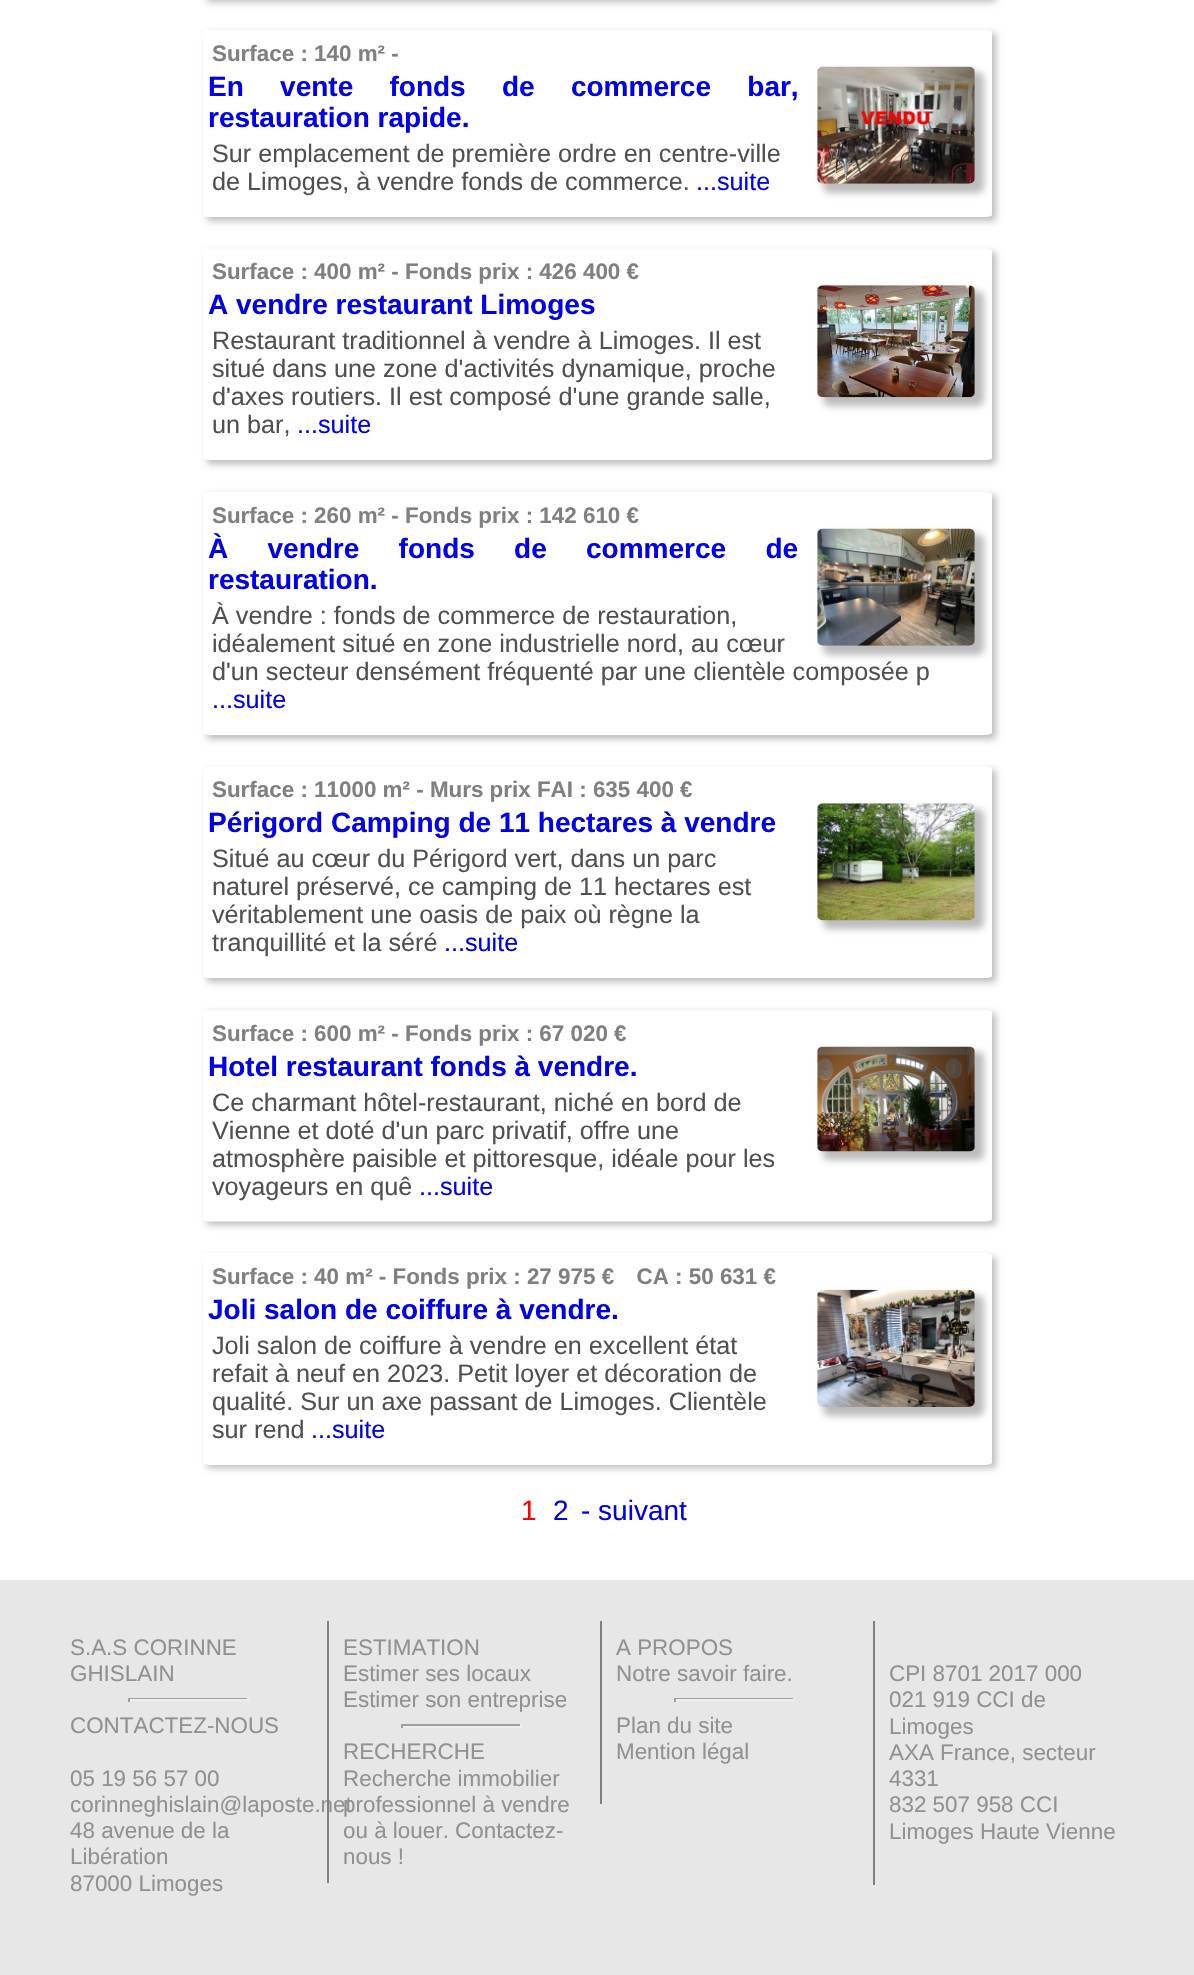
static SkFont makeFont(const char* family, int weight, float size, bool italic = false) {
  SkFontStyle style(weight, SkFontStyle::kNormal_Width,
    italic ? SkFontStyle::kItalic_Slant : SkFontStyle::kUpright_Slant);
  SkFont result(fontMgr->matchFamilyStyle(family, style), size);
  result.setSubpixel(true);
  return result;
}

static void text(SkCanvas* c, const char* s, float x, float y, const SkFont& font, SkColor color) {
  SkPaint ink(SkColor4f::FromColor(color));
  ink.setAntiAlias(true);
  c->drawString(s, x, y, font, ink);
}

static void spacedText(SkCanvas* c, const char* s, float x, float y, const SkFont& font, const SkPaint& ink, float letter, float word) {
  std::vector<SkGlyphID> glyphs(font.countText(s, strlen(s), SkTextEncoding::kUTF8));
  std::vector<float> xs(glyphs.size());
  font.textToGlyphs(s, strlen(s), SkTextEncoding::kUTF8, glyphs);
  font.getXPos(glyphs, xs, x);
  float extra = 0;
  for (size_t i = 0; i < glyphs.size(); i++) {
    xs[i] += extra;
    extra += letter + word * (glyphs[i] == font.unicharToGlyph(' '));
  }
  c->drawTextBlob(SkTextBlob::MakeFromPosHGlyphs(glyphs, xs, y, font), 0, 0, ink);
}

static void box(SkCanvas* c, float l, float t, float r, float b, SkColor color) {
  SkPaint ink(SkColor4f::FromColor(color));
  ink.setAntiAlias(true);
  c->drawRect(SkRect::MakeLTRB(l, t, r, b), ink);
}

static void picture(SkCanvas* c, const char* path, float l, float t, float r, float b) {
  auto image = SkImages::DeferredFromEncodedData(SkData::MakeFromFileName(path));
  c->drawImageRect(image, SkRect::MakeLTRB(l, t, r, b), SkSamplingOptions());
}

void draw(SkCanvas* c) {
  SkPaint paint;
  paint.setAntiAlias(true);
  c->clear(0xffffffff);
  paint.setColor(0xffbcbcbc);
  paint.setMaskFilter(SkMaskFilter::MakeBlur(kNormal_SkBlurStyle, 3.5f));
  c->drawRoundRect(SkRect::MakeLTRB(207, -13, 996, 2), 2, 2, paint);
  paint.setMaskFilter(nullptr);
  c->save();
  c->clipPath(SkPathBuilder(SkPathFillType::kEvenOdd).moveTo(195, 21).lineTo(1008, 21).lineTo(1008, 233).lineTo(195, 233).close().moveTo(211, 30).lineTo(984.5f, 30).cubicTo(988.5f, 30, 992, 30.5f, 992, 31.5f).lineTo(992, 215).cubicTo(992, 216, 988.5f, 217, 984.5f, 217).lineTo(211, 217).cubicTo(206.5f, 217, 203, 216, 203, 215).lineTo(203, 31.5f).cubicTo(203, 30.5f, 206.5f, 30, 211, 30).close().detach(), true);
  paint.setMaskFilter(SkMaskFilter::MakeBlur(kNormal_SkBlurStyle, 3.5f));
  c->drawRoundRect(SkRect::MakeLTRB(207, 33, 996, 221), 2, 2, paint);
  paint.setMaskFilter(nullptr);
  c->restore();
  SkFont face1 = makeFont("Liberation Sans", 700, 22.4f);
  text(c, "Surface : 140 m² -", 212, 61, face1, 0xff808080);
  SkFont face2 = makeFont("Liberation Sans", 700, 28);
  paint.setColor(0xff0000ee);
  spacedText(c, "En vente fonds de commerce bar,", 208, 96, face2, paint, 0, 28.5f);
  text(c, "restauration rapide.", 208, 127, face2, 0xff0000ee);
  paint.setColor(0xffbcbcbc);
  paint.setMaskFilter(SkMaskFilter::MakeBlur(kNormal_SkBlurStyle, 3.5f));
  c->drawRoundRect(SkRect::MakeLTRB(823, 72, 984, 193), 7, 7, paint);
  paint.setMaskFilter(nullptr);
  picture(c, "img_01.png", 817, 66, 975, 184);
  SkFont face3 = makeFont("Liberation Sans", 400, 25.2f);
  text(c, "Sur emplacement de première ordre en centre-ville", 212, 162, face3, 0xff505050);
  text(c, "de Limoges, à vendre fonds de commerce.", 212, 190, face3, 0xff505050);
  text(c, "...suite", 696, 190, face3, 0xff0000ee);
  c->save();
  c->clipPath(SkPathBuilder(SkPathFillType::kEvenOdd).moveTo(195, 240).lineTo(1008, 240).lineTo(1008, 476).lineTo(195, 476).close().moveTo(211, 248.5f).lineTo(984.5f, 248.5f).cubicTo(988.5f, 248.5f, 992, 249.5f, 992, 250.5f).lineTo(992, 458).cubicTo(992, 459.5f, 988.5f, 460, 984.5f, 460).lineTo(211, 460).cubicTo(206.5f, 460, 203, 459.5f, 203, 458).lineTo(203, 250.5f).cubicTo(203, 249.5f, 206.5f, 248.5f, 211, 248.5f).close().detach(), true);
  paint.setMaskFilter(SkMaskFilter::MakeBlur(kNormal_SkBlurStyle, 3.5f));
  c->drawRoundRect(SkRect::MakeLTRB(207, 252, 996, 464), 2, 2, paint);
  paint.setMaskFilter(nullptr);
  c->restore();
  text(c, "Surface : 400 m² - Fonds prix : 426 400 €", 212, 279, face1, 0xff808080);
  text(c, "A vendre restaurant Limoges", 208, 314, face2, 0xff0000ee);
  paint.setMaskFilter(SkMaskFilter::MakeBlur(kNormal_SkBlurStyle, 3.5f));
  c->drawRoundRect(SkRect::MakeLTRB(823, 291, 984, 406), 7, 7, paint);
  paint.setMaskFilter(nullptr);
  picture(c, "img_02.png", 817, 285, 975, 398);
  text(c, "Restaurant traditionnel à vendre à Limoges. Il est", 212, 349, face3, 0xff505050);
  text(c, "situé dans une zone d'activités dynamique, proche", 212, 377, face3, 0xff505050);
  text(c, "d'axes routiers. Il est composé d'une grande salle,", 212, 405, face3, 0xff505050);
  text(c, "un bar,", 212, 433, face3, 0xff505050);
  text(c, "...suite", 297, 433, face3, 0xff0000ee);
  c->save();
  c->clipPath(SkPathBuilder(SkPathFillType::kEvenOdd).moveTo(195, 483).lineTo(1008, 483).lineTo(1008, 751).lineTo(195, 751).close().moveTo(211, 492).lineTo(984.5f, 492).cubicTo(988.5f, 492, 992, 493, 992, 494).lineTo(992, 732.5f).cubicTo(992, 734, 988.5f, 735, 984.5f, 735).lineTo(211, 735).cubicTo(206.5f, 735, 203, 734, 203, 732.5f).lineTo(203, 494).cubicTo(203, 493, 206.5f, 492, 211, 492).close().detach(), true);
  paint.setMaskFilter(SkMaskFilter::MakeBlur(kNormal_SkBlurStyle, 3.5f));
  c->drawRoundRect(SkRect::MakeLTRB(207, 495, 996, 739), 2.5f, 2.5f, paint);
  paint.setMaskFilter(nullptr);
  c->restore();
  text(c, "Surface : 260 m² - Fonds prix : 142 610 €", 212, 523, face1, 0xff808080);
  paint.setColor(0xff0000ee);
  spacedText(c, "À vendre fonds de commerce de", 208, 558, face2, paint, 0, 31.5f);
  text(c, "restauration.", 208, 589, face2, 0xff0000ee);
  paint.setColor(0xffbcbcbc);
  paint.setMaskFilter(SkMaskFilter::MakeBlur(kNormal_SkBlurStyle, 3.5f));
  c->drawRoundRect(SkRect::MakeLTRB(823, 534, 984, 655), 7, 7, paint);
  paint.setMaskFilter(nullptr);
  picture(c, "img_03.png", 817, 528, 975, 646);
  text(c, "À vendre : fonds de commerce de restauration,", 212, 624, face3, 0xff505050);
  text(c, "idéalement situé en zone industrielle nord, au cœur", 212, 652, face3, 0xff505050);
  text(c, "d'un secteur densément fréquenté par une clientèle composée p", 212, 680, face3, 0xff505050);
  text(c, "...suite", 212, 708, face3, 0xff0000ee);
  c->save();
  c->clipPath(SkPathBuilder(SkPathFillType::kEvenOdd).moveTo(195, 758).lineTo(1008, 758).lineTo(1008, 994).lineTo(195, 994).close().moveTo(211, 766.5f).lineTo(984.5f, 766.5f).cubicTo(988.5f, 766.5f, 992, 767.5f, 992, 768.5f).lineTo(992, 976).cubicTo(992, 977.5f, 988.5f, 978, 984.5f, 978).lineTo(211, 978).cubicTo(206.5f, 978, 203, 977.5f, 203, 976).lineTo(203, 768.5f).cubicTo(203, 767.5f, 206.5f, 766.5f, 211, 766.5f).close().detach(), true);
  paint.setMaskFilter(SkMaskFilter::MakeBlur(kNormal_SkBlurStyle, 3.5f));
  c->drawRoundRect(SkRect::MakeLTRB(207, 770, 996, 982), 2, 2, paint);
  paint.setMaskFilter(nullptr);
  c->restore();
  text(c, "Surface : 11000 m² - Murs prix FAI : 635 400 €", 212, 797, face1, 0xff808080);
  text(c, "Périgord Camping de 11 hectares à vendre", 208, 832, face2, 0xff0000ee);
  paint.setMaskFilter(SkMaskFilter::MakeBlur(kNormal_SkBlurStyle, 3.5f));
  c->drawRoundRect(SkRect::MakeLTRB(823, 809, 984, 929), 7, 7, paint);
  paint.setMaskFilter(nullptr);
  picture(c, "img_04.png", 817, 803, 975, 921);
  text(c, "Situé au cœur du Périgord vert, dans un parc", 212, 867, face3, 0xff505050);
  text(c, "naturel préservé, ce camping de 11 hectares est", 212, 895, face3, 0xff505050);
  text(c, "véritablement une oasis de paix où règne la", 212, 923, face3, 0xff505050);
  text(c, "tranquillité et la séré", 212, 951, face3, 0xff505050);
  text(c, "...suite", 444, 951, face3, 0xff0000ee);
  c->save();
  c->clipPath(SkPathBuilder(SkPathFillType::kEvenOdd).moveTo(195, 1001).lineTo(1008, 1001).lineTo(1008, 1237).lineTo(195, 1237).close().moveTo(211, 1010).lineTo(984.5f, 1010).cubicTo(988.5f, 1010, 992, 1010.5f, 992, 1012).lineTo(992, 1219.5f).cubicTo(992, 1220.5f, 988.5f, 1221.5f, 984.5f, 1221.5f).lineTo(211, 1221.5f).cubicTo(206.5f, 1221.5f, 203, 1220.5f, 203, 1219.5f).lineTo(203, 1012).cubicTo(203, 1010.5f, 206.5f, 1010, 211, 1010).close().detach(), true);
  paint.setMaskFilter(SkMaskFilter::MakeBlur(kNormal_SkBlurStyle, 3.5f));
  c->drawRoundRect(SkRect::MakeLTRB(207, 1013, 996, 1225), 2, 2, paint);
  paint.setMaskFilter(nullptr);
  c->restore();
  text(c, "Surface : 600 m² - Fonds prix : 67 020 €", 212, 1041, face1, 0xff808080);
  text(c, "Hotel restaurant fonds à vendre.", 208, 1076, face2, 0xff0000ee);
  paint.setMaskFilter(SkMaskFilter::MakeBlur(kNormal_SkBlurStyle, 3.5f));
  c->drawRoundRect(SkRect::MakeLTRB(823, 1052, 984, 1160), 5, 5, paint);
  paint.setMaskFilter(nullptr);
  picture(c, "img_05.png", 817, 1046, 975, 1152);
  text(c, "Ce charmant hôtel-restaurant, niché en bord de", 212, 1111, face3, 0xff505050);
  text(c, "Vienne et doté d'un parc privatif, offre une", 212, 1139, face3, 0xff505050);
  text(c, "atmosphère paisible et pittoresque, idéale pour les", 212, 1167, face3, 0xff505050);
  text(c, "voyageurs en quê", 212, 1195, face3, 0xff505050);
  text(c, "...suite", 419, 1195, face3, 0xff0000ee);
  c->save();
  c->clipPath(SkPathBuilder(SkPathFillType::kEvenOdd).moveTo(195, 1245).lineTo(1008, 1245).lineTo(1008, 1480).lineTo(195, 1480).close().moveTo(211, 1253).lineTo(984.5f, 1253).cubicTo(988.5f, 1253, 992, 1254, 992, 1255).lineTo(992, 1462.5f).cubicTo(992, 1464, 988.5f, 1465, 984.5f, 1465).lineTo(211, 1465).cubicTo(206.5f, 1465, 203, 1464, 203, 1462.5f).lineTo(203, 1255).cubicTo(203, 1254, 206.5f, 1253, 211, 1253).close().detach(), true);
  paint.setMaskFilter(SkMaskFilter::MakeBlur(kNormal_SkBlurStyle, 3.5f));
  c->drawRoundRect(SkRect::MakeLTRB(207, 1257, 996, 1468), 2, 2, paint);
  paint.setMaskFilter(nullptr);
  c->restore();
  text(c, "Surface : 40 m² - Fonds prix : 27 975 € CA : 50 631 €", 212, 1284, face1, 0xff808080);
  text(c, "Joli salon de coiffure à vendre.", 208, 1319, face2, 0xff0000ee);
  paint.setMaskFilter(SkMaskFilter::MakeBlur(kNormal_SkBlurStyle, 3.5f));
  c->drawRoundRect(SkRect::MakeLTRB(823, 1295, 984, 1416), 7, 7, paint);
  paint.setMaskFilter(nullptr);
  picture(c, "img_06.png", 817, 1289, 975, 1407);
  text(c, "Joli salon de coiffure à vendre en excellent état", 212, 1354, face3, 0xff505050);
  text(c, "refait à neuf en 2023. Petit loyer et décoration de", 212, 1382, face3, 0xff505050);
  text(c, "qualité. Sur un axe passant de Limoges. Clientèle", 212, 1410, face3, 0xff505050);
  text(c, "sur rend", 212, 1438, face3, 0xff505050);
  text(c, "...suite", 311, 1438, face3, 0xff0000ee);
  SkFont face4 = makeFont("Liberation Sans", 400, 28);
  text(c, "1", 521, 1520, face4, 0xffff0000);
  text(c, "2", 553, 1520, face4, 0xff0000ee);
  text(c, "- suivant", 581, 1520, face4, 0xff0000ee);
  box(c, 0, 1580, 1194, 1975, 0xffe7e7e7);
  SkFont face5 = makeFont("Liberation Sans", 400, 22.4f);
  text(c, "S.A.S CORINNE", 70, 1655, face5, 0xff919191);
  text(c, "GHISLAIN", 70, 1681, face5, 0xff919191);
  box(c, 128, 1698, 249, 1699, 0xff9f9f9f);
  box(c, 247, 1698, 249, 1702, 0xffeeeeee);
  box(c, 128, 1699, 249, 1701, 0xffeeeeee);
  box(c, 128, 1698, 130, 1702, 0xff9f9f9f);
  text(c, "CONTACTEZ-NOUS", 70, 1733, face5, 0xff919191);
  text(c, "05 19 56 57 00", 70, 1786, face5, 0xff919191);
  text(c, "corinneghislain@laposte.net", 70, 1812, face5, 0xff919191);
  text(c, "48 avenue de la", 70, 1838, face5, 0xff919191);
  text(c, "Libération", 70, 1864, face5, 0xff919191);
  text(c, "87000 Limoges", 70, 1891, face5, 0xff919191);
  box(c, 327, 1621, 329, 1883, 0xff808080);
  text(c, "ESTIMATION", 343, 1655, face5, 0xff919191);
  text(c, "Estimer ses locaux", 343, 1681, face5, 0xff919191);
  text(c, "Estimer son entreprise", 343, 1707, face5, 0xff919191);
  box(c, 401, 1724, 522, 1726, 0xff9f9f9f);
  box(c, 520, 1724, 522, 1728, 0xffeeeeee);
  box(c, 401, 1726, 522, 1728, 0xffeeeeee);
  box(c, 401, 1724, 403, 1728, 0xff9f9f9f);
  text(c, "RECHERCHE", 343, 1759, face5, 0xff919191);
  text(c, "Recherche immobilier", 343, 1786, face5, 0xff919191);
  text(c, "professionnel à vendre", 343, 1812, face5, 0xff919191);
  text(c, "ou à louer. Contactez-", 343, 1838, face5, 0xff919191);
  text(c, "nous !", 343, 1864, face5, 0xff919191);
  box(c, 600, 1621, 602, 1804, 0xff808080);
  text(c, "A PROPOS", 616, 1655, face5, 0xff919191);
  text(c, "Notre savoir faire.", 616, 1681, face5, 0xff919191);
  box(c, 674, 1698, 795, 1699, 0xff9f9f9f);
  box(c, 793, 1698, 795, 1702, 0xffeeeeee);
  box(c, 674, 1699, 795, 1701, 0xffeeeeee);
  box(c, 674, 1698, 676, 1702, 0xff9f9f9f);
  text(c, "Plan du site", 616, 1733, face5, 0xff919191);
  text(c, "Mention légal", 616, 1759, face5, 0xff919191);
  box(c, 873, 1621, 875, 1885, 0xff808080);
  text(c, "CPI 8701 2017 000", 889, 1681, face5, 0xff919191);
  text(c, "021 919 CCI de", 889, 1707, face5, 0xff919191);
  text(c, "Limoges", 889, 1734, face5, 0xff919191);
  text(c, "AXA France, secteur", 889, 1760, face5, 0xff919191);
  text(c, "4331", 889, 1786, face5, 0xff919191);
  text(c, "832 507 958 CCI", 889, 1812, face5, 0xff919191);
  text(c, "Limoges Haute Vienne", 889, 1839, face5, 0xff919191);
}
